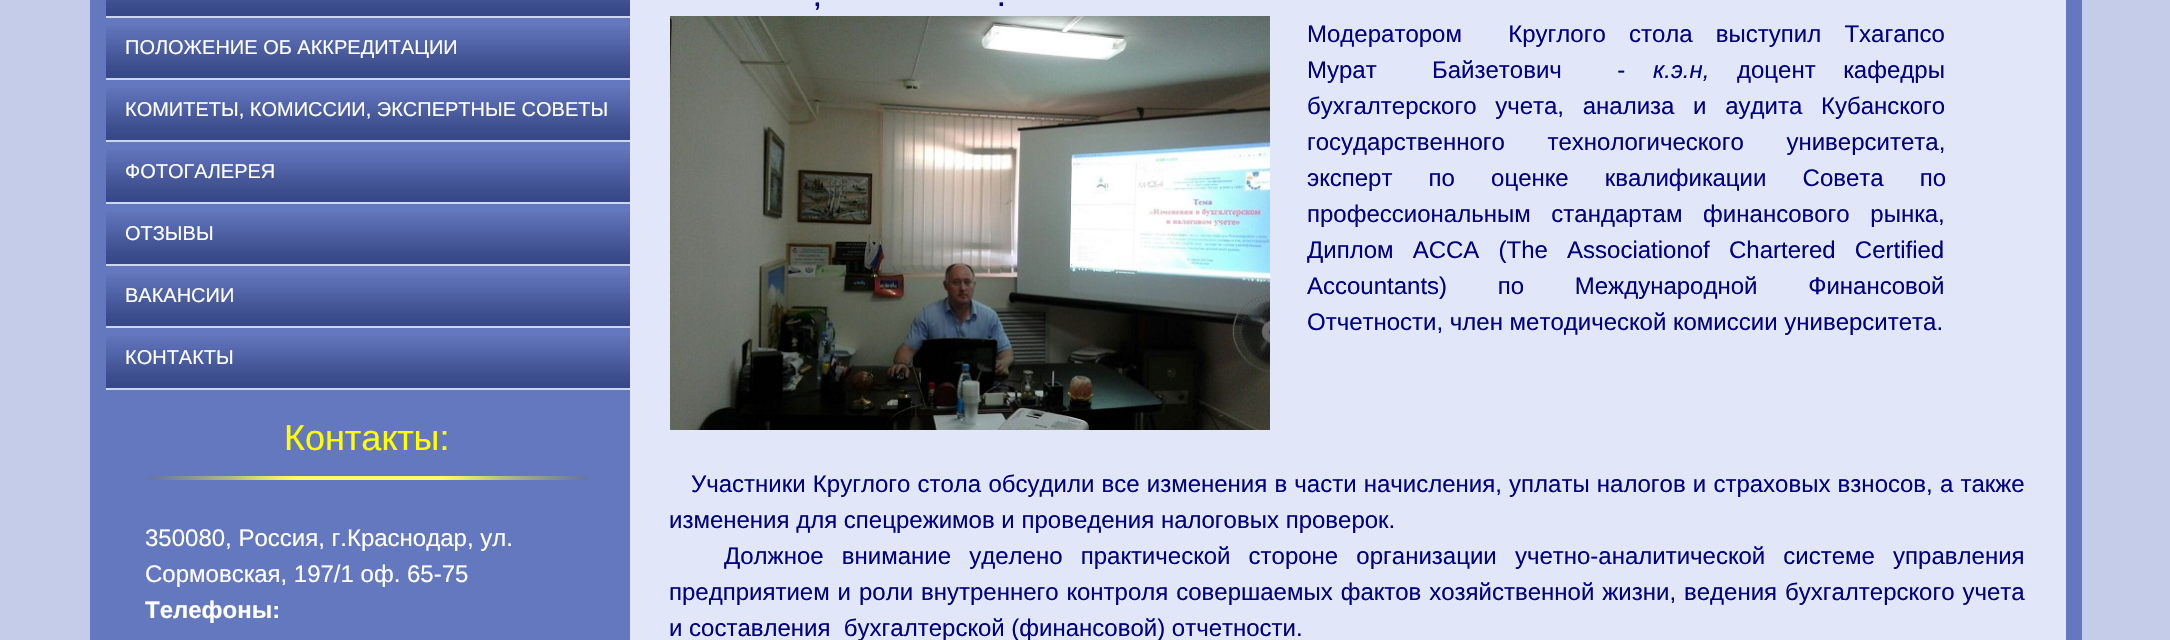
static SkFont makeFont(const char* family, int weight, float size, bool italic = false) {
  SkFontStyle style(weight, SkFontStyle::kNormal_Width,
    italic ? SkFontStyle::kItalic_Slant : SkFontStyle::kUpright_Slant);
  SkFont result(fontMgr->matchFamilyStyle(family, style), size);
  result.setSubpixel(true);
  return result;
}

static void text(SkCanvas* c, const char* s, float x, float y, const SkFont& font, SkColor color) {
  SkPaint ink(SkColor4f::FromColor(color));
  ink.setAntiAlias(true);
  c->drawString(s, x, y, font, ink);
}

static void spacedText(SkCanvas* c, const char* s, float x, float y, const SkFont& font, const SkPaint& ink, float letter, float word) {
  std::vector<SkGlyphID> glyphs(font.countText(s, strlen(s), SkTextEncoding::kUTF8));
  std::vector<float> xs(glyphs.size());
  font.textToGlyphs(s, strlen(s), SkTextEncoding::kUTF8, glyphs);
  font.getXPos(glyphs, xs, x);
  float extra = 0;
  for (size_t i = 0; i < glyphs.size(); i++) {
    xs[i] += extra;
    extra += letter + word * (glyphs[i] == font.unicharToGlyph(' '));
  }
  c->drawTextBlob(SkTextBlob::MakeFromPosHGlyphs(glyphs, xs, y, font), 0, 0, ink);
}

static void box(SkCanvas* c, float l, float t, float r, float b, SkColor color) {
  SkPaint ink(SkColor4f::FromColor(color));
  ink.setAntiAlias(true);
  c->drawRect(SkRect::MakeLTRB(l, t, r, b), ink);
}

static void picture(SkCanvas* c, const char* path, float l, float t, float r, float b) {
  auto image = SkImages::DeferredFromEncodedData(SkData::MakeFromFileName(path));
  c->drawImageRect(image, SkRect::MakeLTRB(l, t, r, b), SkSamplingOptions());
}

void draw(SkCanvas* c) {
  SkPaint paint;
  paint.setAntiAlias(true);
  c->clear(0xffc4cce9);
  box(c, 90, 0, 2082, 640, 0xff6478bf);
  picture(c, "img_01.png", 106, 0, 630, 16);
  box(c, 106, 16, 630, 18, 0xffcdd6f1);
  picture(c, "img_02.png", 106, 26, 630, 78);
  box(c, 106, 78, 630, 80, 0xffcdd6f1);
  SkFont face1 = makeFont("Liberation Sans", 400, 20);
  text(c, "ПОЛОЖЕНИЕ ОБ АККРЕДИТАЦИИ", 125, 54, face1, 0xffffffff);
  picture(c, "img_02.png", 106, 88, 630, 140);
  box(c, 106, 140, 630, 142, 0xffcdd6f1);
  text(c, "КОМИТЕТЫ, КОМИССИИ, ЭКСПЕРТНЫЕ СОВЕТЫ", 125, 116, face1, 0xffffffff);
  picture(c, "img_02.png", 106, 150, 630, 202);
  box(c, 106, 202, 630, 204, 0xffcdd6f1);
  text(c, "ФОТОГАЛЕРЕЯ", 125, 178, face1, 0xffffffff);
  picture(c, "img_02.png", 106, 212, 630, 264);
  box(c, 106, 264, 630, 266, 0xffcdd6f1);
  text(c, "ОТЗЫВЫ", 125, 240, face1, 0xffffffff);
  picture(c, "img_02.png", 106, 274, 630, 326);
  box(c, 106, 326, 630, 328, 0xffcdd6f1);
  text(c, "ВАКАНСИИ", 125, 302, face1, 0xffffffff);
  picture(c, "img_02.png", 106, 336, 630, 388);
  box(c, 106, 388, 630, 390, 0xffcdd6f1);
  text(c, "КОНТАКТЫ", 125, 364, face1, 0xffffffff);
  SkFont face2 = makeFont("Liberation Sans", 400, 36);
  text(c, "Контакты:", 284, 450, face2, 0xffffff00);
  picture(c, "img_03.png", 146, 476, 590, 480);
  SkFont face3 = makeFont("Liberation Sans", 400, 24);
  text(c, "350080, Россия, г.Краснодар, ул.", 145, 546, face3, 0xffffffff);
  text(c, "Сормовская, 197/1 оф. 65-75", 145, 582, face3, 0xffffffff);
  SkFont face4 = makeFont("Liberation Sans", 700, 24);
  text(c, "Телефоны:", 145, 618, face4, 0xffffffff);
  box(c, 630, 0, 2066, 640, 0xffe1e7f8);
  text(c, ",", 814, 6, face4, 0xff000080);
  text(c, ".", 998, 6, face4, 0xff000080);
  picture(c, "img_04.png", 670, 16, 1270, 430);
  paint.setColor(0xff000080);
  spacedText(c, "Модератором  Круглого стола выступил Тхагапсо", 1307, 42, face3, paint, 0, 16.5f);
  spacedText(c, "Мурат  Байзетович  -", 1307, 78, face3, paint, 0, 21);
  SkFont face5 = makeFont("Liberation Sans", 400, 24, true);
  text(c, "к.э.н,", 1653, 78, face5, 0xff000080);
  spacedText(c, "доцент кафедры", 1737, 78, face3, paint, 0, 21);
  spacedText(c, "бухгалтерского учета, анализа и аудита Кубанского", 1307, 114, face3, paint, 0, 12);
  spacedText(c, "государственного технологического университета,", 1307, 150, face3, paint, 0, 36);
  spacedText(c, "эксперт по оценке квалификации Совета по", 1307, 186, face3, paint, 0, 29.5f);
  spacedText(c, "профессиональным стандартам финансового рынка,", 1307, 222, face3, paint, 0, 14);
  spacedText(c, "Диплом АССА (The Associationof Chartered Certified", 1307, 258, face3, paint, 0, 12.5f);
  spacedText(c, "Accountants) по Международной Финансовой", 1307, 294, face3, paint, 0, 44);
  text(c, "Отчетности, член методической комиссии университета.", 1307, 330, face3, 0xff000080);
  spacedText(c, "Участники Круглого стола обсудили все изменения в части начисления, уплаты налогов и страховых взносов, а также", 691, 492, face3, paint, 0, 0.5f);
  text(c, "изменения для спецрежимов и проведения налоговых проверок.", 669, 528, face3, 0xff000080);
  spacedText(c, "Должное внимание уделено практической стороне организации учетно-аналитической системе управления", 724, 564, face3, paint, 0, 11.5f);
  spacedText(c, "предприятием и роли внутреннего контроля совершаемых фактов хозяйственной жизни, ведения бухгалтерского учета", 669, 600, face3, paint, 0, 1.25f);
  text(c, "и составления  бухгалтерской (финансовой) отчетности.", 669, 636, face3, 0xff000080);
}
